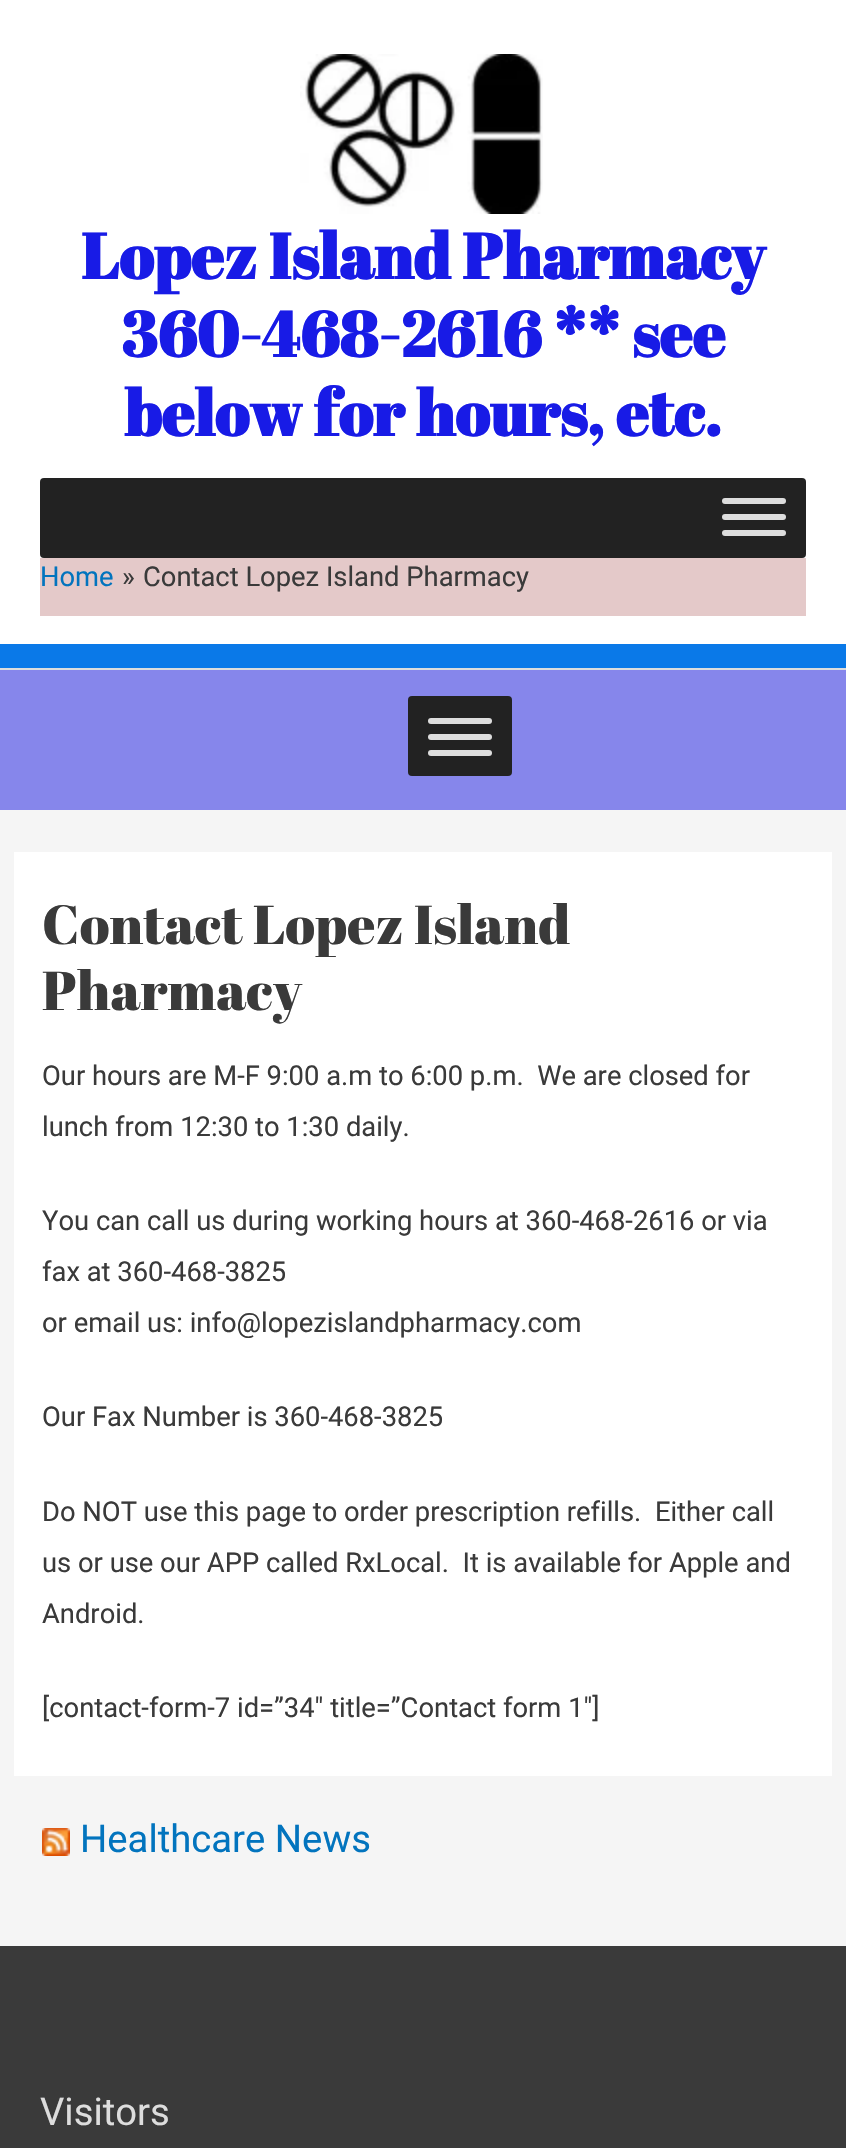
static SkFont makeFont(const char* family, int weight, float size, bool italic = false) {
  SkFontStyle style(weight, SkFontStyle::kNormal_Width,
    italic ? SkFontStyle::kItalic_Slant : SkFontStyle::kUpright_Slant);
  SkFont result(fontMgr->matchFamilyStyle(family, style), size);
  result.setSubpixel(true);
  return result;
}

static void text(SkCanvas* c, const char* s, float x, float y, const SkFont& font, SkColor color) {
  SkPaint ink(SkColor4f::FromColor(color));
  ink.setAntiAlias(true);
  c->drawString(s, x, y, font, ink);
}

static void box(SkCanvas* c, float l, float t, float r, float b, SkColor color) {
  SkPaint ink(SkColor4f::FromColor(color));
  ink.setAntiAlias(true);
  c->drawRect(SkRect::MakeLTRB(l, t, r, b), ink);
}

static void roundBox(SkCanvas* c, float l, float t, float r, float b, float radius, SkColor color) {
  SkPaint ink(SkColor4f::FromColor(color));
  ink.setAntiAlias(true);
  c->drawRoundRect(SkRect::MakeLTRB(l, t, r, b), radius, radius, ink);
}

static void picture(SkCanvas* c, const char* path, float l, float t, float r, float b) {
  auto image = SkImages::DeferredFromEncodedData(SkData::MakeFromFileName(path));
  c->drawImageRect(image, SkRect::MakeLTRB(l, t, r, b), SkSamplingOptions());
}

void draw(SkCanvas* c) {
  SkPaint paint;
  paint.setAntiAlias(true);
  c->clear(0xfff5f5f5);
  box(c, 0, 0, 846, 644, 0xffffffff);
  box(c, 0, 644, 846, 668, 0xff0a79e8);
  picture(c, "img_01.png", 300, 54, 543, 214);
  SkFont face1 = makeFont("Abril Fatface", 700, 63.75f);
  text(c, "Lopez Island Pharmacy", 81, 279, face1, 0xff181be6);
  text(c, "360-468-2616 ** see", 121, 357, face1, 0xff181be6);
  text(c, "below for hours, etc.", 124, 436, face1, 0xff181be6);
  roundBox(c, 40, 478, 806, 558, 4, 0xff222222);
  roundBox(c, 722, 498, 786, 504, 3, 0xffdddddd);
  roundBox(c, 722, 514, 786, 520, 3, 0xffdddddd);
  roundBox(c, 722, 530, 786, 536, 3, 0xffdddddd);
  box(c, 40, 558, 806, 616, 0xffe4c9c9);
  SkFont face2 = makeFont("Roboto", 400, 27.35f);
  text(c, "Home", 40, 586, face2, 0xff0274be);
  text(c, "»", 122, 586, face2, 0xff3a3a3a);
  text(c, "Contact Lopez Island Pharmacy", 143, 586, face2, 0xff3a3a3a);
  box(c, 0, 670, 846, 810, 0xff8686eb);
  box(c, 0, 668, 846, 670, 0xffdddddd);
  roundBox(c, 408, 696, 512, 776, 4, 0xff222222);
  roundBox(c, 428, 718, 492, 724, 3, 0xffdddddd);
  roundBox(c, 428, 734, 492, 740, 3, 0xffdddddd);
  roundBox(c, 428, 750, 492, 756, 3, 0xffdddddd);
  box(c, 14, 852, 832, 1776, 0xffffffff);
  SkFont face3 = makeFont("Abril Fatface", 400, 54.75f);
  text(c, "Contact Lopez Island", 42, 944, face3, 0xff3a3a3a);
  text(c, "Pharmacy", 42, 1010, face3, 0xff3a3a3a);
  text(c, "Our hours are M-F 9:00 a.m to 6:00 p.m.  We are closed for", 42, 1085, face2, 0xff3a3a3a);
  text(c, "lunch from 12:30 to 1:30 daily.", 42, 1136, face2, 0xff3a3a3a);
  text(c, "You can call us during working hours at 360-468-2616 or via", 42, 1230, face2, 0xff3a3a3a);
  text(c, "fax at 360-468-3825", 42, 1281, face2, 0xff3a3a3a);
  text(c, "or email us: info@lopezislandpharmacy.com", 42, 1332, face2, 0xff3a3a3a);
  text(c, "Our Fax Number is 360-468-3825", 42, 1426, face2, 0xff3a3a3a);
  text(c, "Do NOT use this page to order prescription refills.  Either call", 42, 1521, face2, 0xff3a3a3a);
  text(c, "us or use our APP called RxLocal.  It is available for Apple and", 42, 1572, face2, 0xff3a3a3a);
  text(c, "Android.", 42, 1623, face2, 0xff3a3a3a);
  text(c, "[contact-form-7 id=”34″ title=”Contact form 1″]", 42, 1717, face2, 0xff3a3a3a);
  picture(c, "img_02.png", 42, 1828, 70, 1856);
  SkFont face4 = makeFont("Roboto", 400, 38.25f);
  text(c, "Healthcare News", 80, 1852, face4, 0xff0274be);
  box(c, 0, 1946, 846, 2148, 0xff3a3a3a);
  text(c, "Visitors", 40, 2125, face4, 0xffdddddd);
}
